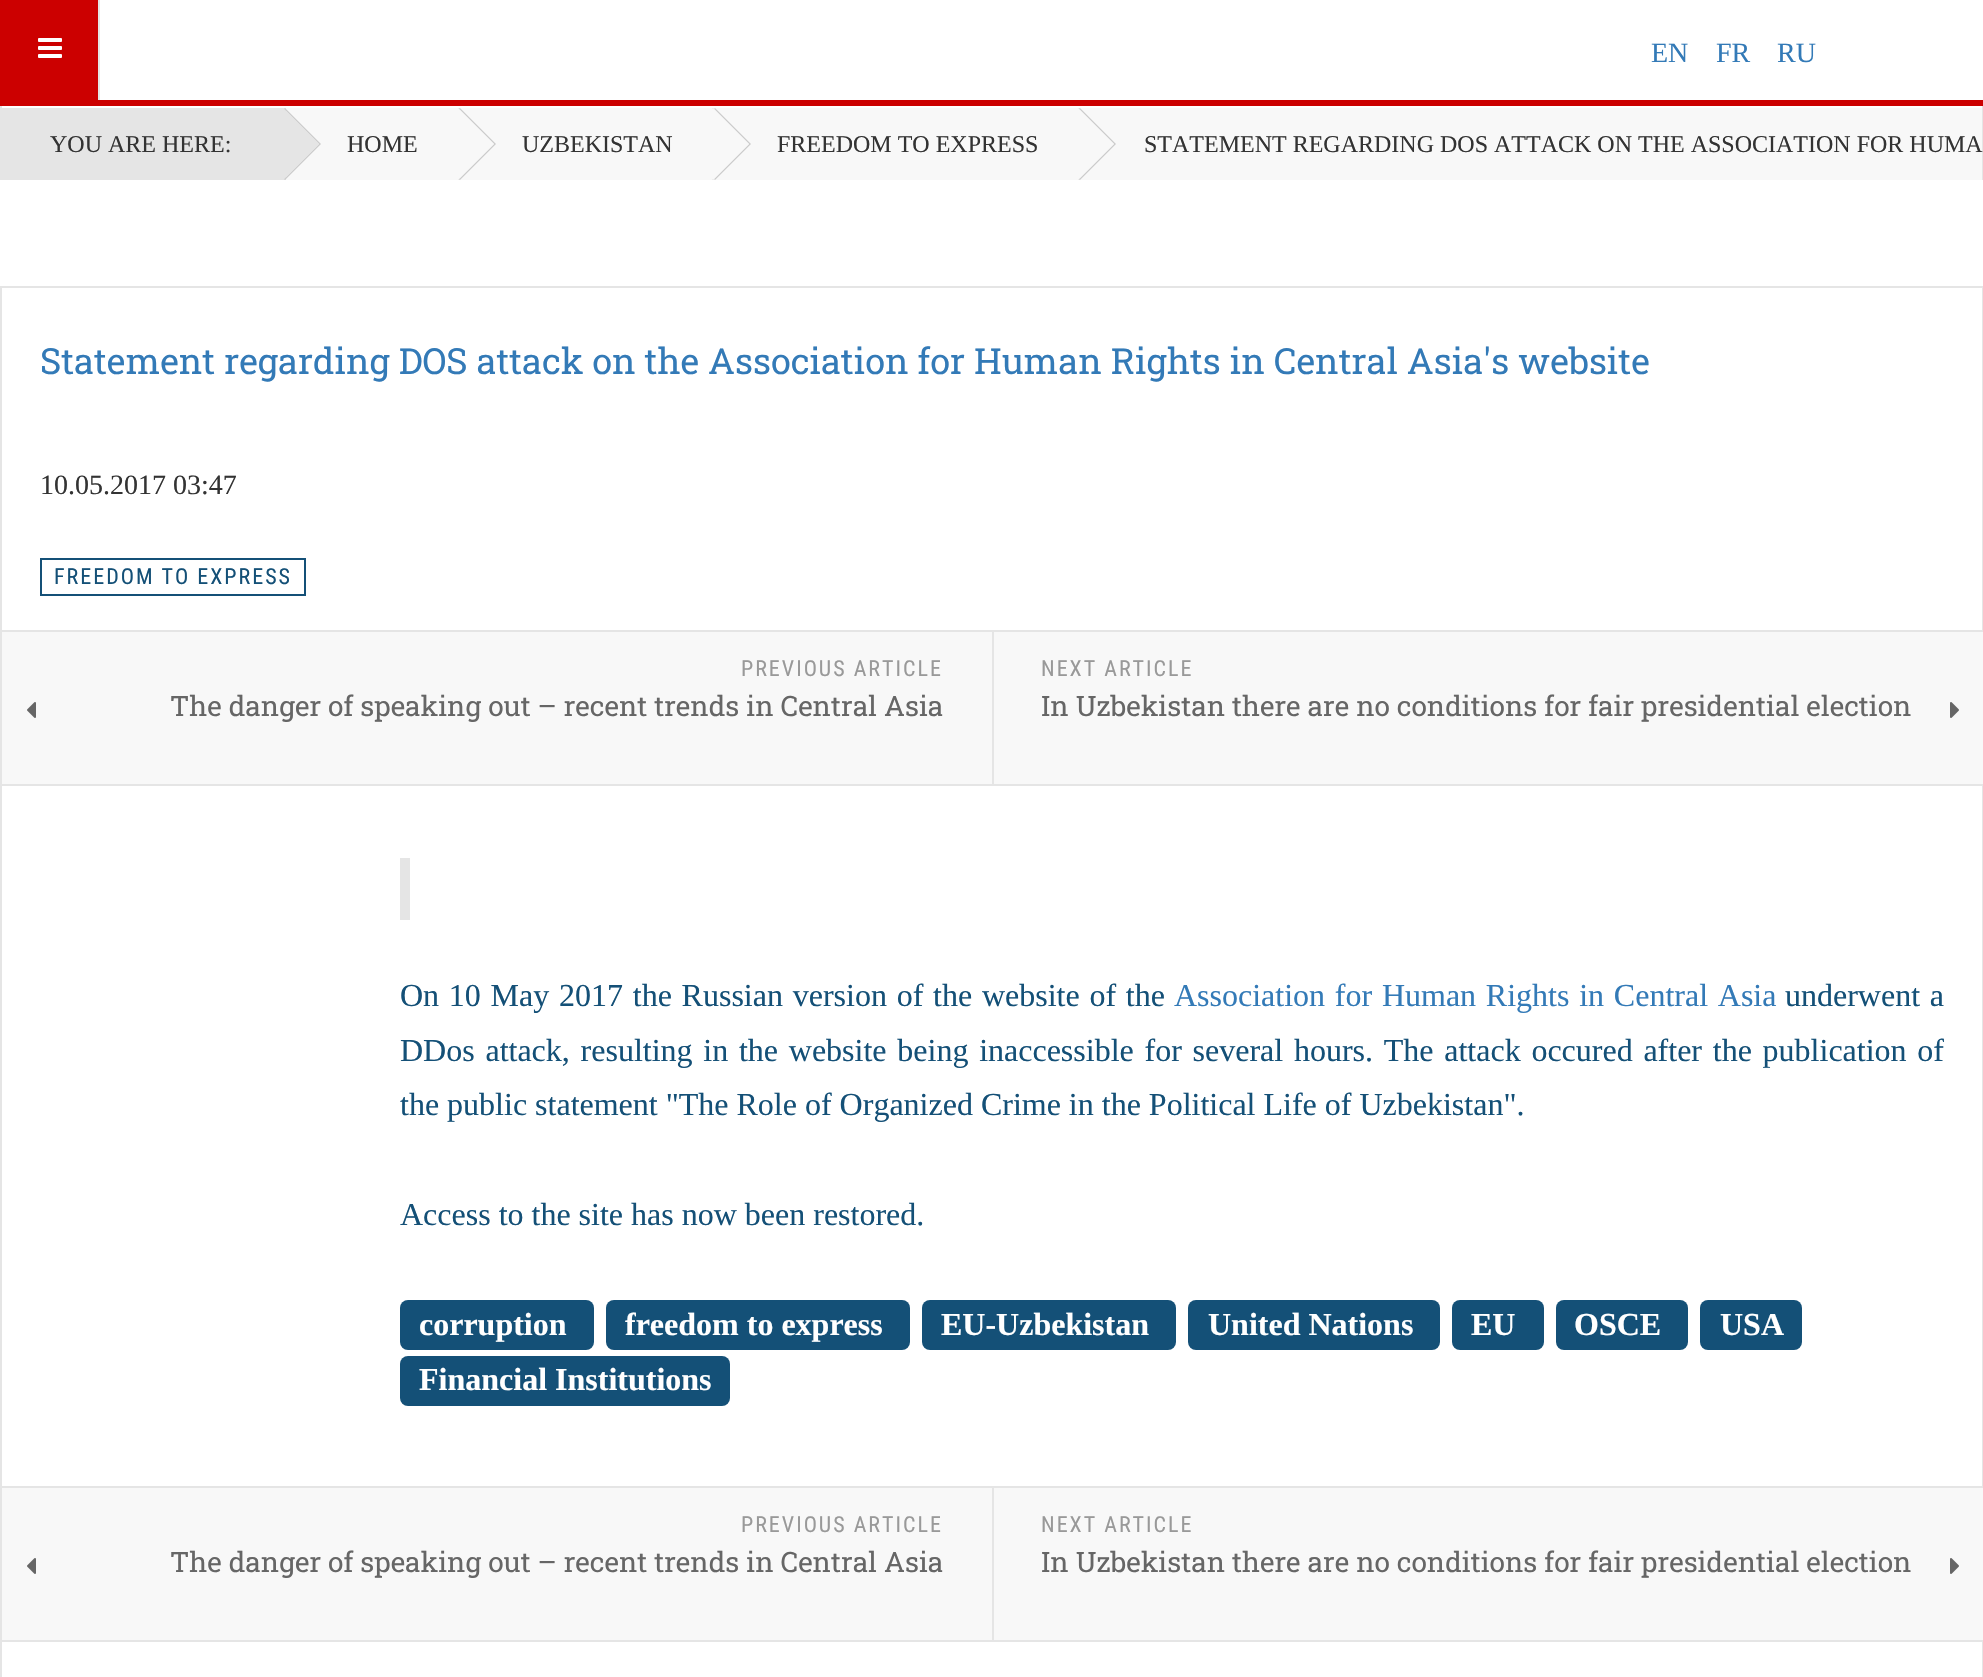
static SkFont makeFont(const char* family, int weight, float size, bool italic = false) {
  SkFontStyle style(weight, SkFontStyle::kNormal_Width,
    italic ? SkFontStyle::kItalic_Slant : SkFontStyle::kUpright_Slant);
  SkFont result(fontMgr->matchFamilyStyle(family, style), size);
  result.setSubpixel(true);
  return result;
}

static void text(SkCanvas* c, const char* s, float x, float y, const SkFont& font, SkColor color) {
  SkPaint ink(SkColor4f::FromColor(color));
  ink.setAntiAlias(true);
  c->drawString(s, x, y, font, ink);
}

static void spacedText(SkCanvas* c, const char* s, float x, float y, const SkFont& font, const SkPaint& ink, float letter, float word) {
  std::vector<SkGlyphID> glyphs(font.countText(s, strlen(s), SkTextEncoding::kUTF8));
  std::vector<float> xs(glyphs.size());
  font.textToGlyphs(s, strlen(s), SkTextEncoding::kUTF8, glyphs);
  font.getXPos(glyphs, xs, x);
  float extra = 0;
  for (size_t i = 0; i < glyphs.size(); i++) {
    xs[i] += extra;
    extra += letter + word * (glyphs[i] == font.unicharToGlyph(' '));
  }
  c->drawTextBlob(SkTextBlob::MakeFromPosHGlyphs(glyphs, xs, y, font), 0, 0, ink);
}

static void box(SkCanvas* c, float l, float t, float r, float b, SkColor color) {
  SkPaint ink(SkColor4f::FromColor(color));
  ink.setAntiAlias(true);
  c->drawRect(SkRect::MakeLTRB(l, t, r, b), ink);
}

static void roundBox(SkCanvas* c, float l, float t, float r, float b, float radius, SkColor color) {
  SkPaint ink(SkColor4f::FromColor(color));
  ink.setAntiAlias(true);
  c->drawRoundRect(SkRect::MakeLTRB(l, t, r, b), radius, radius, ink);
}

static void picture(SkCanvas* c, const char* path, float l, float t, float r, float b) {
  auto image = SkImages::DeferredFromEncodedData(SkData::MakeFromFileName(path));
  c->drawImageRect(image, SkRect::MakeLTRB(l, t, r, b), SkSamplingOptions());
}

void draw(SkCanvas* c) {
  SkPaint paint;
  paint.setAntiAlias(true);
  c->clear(0xffffffff);
  box(c, 0, 100, 1983, 106, 0xffcc0000);
  box(c, 0, 0, 98, 100, 0xffcc0000);
  box(c, 98, 0, 100, 100, 0xffe5e5e5);
  picture(c, "img_01.png", 38, 38, 62, 58);
  SkFont face1 = makeFont("Liberation Serif", 400, 28);
  text(c, "EN", 1651, 62, face1, 0xff337ab7);
  text(c, "FR", 1716, 62, face1, 0xff337ab7);
  text(c, "RU", 1777, 62, face1, 0xff337ab7);
  box(c, 1982, 106, 1983, 180, 0xffe5e5e5);
  box(c, 0, 106, 2, 180, 0xffe5e5e5);
  box(c, 2, 108, 286, 180, 0xffe5e5e5);
  SkFont face2 = makeFont("Liberation Serif", 400, 24);
  text(c, "YOU ARE HERE:", 50, 152, face2, 0xff333333);
  box(c, 286, 108, 458, 180, 0xfff8f8f8);
  paint.setColor(0xffcccccc);
  c->drawPath(SkPathBuilder().moveTo(285, 108).lineTo(284, 109).lineTo(319, 144).lineTo(284, 179).lineTo(285, 180).lineTo(321, 144).close().detach(), paint);
  paint.setColor(0xffe5e5e5);
  c->drawPath(SkPathBuilder().moveTo(283, 108).lineTo(319, 144).lineTo(283, 180).lineTo(247, 144).close().detach(), paint);
  box(c, 458, 108, 460, 180, 0xffe5e5e5);
  text(c, "HOME", 347, 152, face2, 0xff333333);
  box(c, 460, 108, 712, 180, 0xfff8f8f8);
  paint.setColor(0xffcccccc);
  c->drawPath(SkPathBuilder().moveTo(460, 108).lineTo(459, 109).lineTo(494, 144).lineTo(459, 179).lineTo(460, 180).lineTo(496, 144).close().detach(), paint);
  paint.setColor(0xfff8f8f8);
  c->drawPath(SkPathBuilder().moveTo(458, 108).lineTo(494, 144).lineTo(458, 180).lineTo(422, 144).close().detach(), paint);
  box(c, 712, 108, 714, 180, 0xffe5e5e5);
  text(c, "UZBEKISTAN", 522, 152, face2, 0xff333333);
  box(c, 714, 108, 1078, 180, 0xfff8f8f8);
  paint.setColor(0xffcccccc);
  c->drawPath(SkPathBuilder().moveTo(715, 108).lineTo(714, 109).lineTo(749, 144).lineTo(714, 179).lineTo(715, 180).lineTo(751, 144).close().detach(), paint);
  paint.setColor(0xfff8f8f8);
  c->drawPath(SkPathBuilder().moveTo(713, 108).lineTo(749, 144).lineTo(713, 180).lineTo(677, 144).close().detach(), paint);
  box(c, 1078, 108, 1080, 180, 0xffe5e5e5);
  text(c, "FREEDOM TO EXPRESS", 777, 152, face2, 0xff333333);
  box(c, 1080, 108, 1982, 180, 0xfff8f8f8);
  paint.setColor(0xffcccccc);
  c->drawPath(SkPathBuilder().moveTo(1080, 108).lineTo(1079, 109).lineTo(1114, 144).lineTo(1079, 179).lineTo(1080, 180).lineTo(1116, 144).close().detach(), paint);
  paint.setColor(0xfff8f8f8);
  c->drawPath(SkPathBuilder().moveTo(1078, 108).lineTo(1114, 144).lineTo(1078, 180).lineTo(1042, 144).close().detach(), paint);
  text(c, "STATEMENT REGARDING DOS ATTACK ON THE ASSOCIATION FOR HUMA", 1144, 152, face2, 0xff333333);
  paint.setStyle(SkPaint::kStroke_Style);
  paint.setStrokeWidth(2);
  paint.setColor(0xffe5e5e5);
  c->drawRect(SkRect::MakeLTRB(1, 287, 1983, 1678), paint);
  SkFont face3 = makeFont("Roboto Slab", 400, 36);
  text(c, "Statement regarding DOS attack on the Association for Human Rights in Central Asia's website", 40, 374, face3, 0xff337ab7);
  text(c, "10.05.2017 03:47", 40, 494, face1, 0xff333333);
  paint.setColor(0xff145077);
  c->drawRect(SkRect::MakeLTRB(41, 559, 305, 595), paint);
  SkFont face4 = makeFont("Roboto Condensed", 400, 22);
  paint.setStyle(SkPaint::kFill_Style);
  spacedText(c, "FREEDOM TO EXPRESS", 54, 584, face4, paint, 2, 0);
  box(c, 0, 630, 1983, 632, 0xffe5e5e5);
  box(c, 0, 784, 1983, 786, 0xffe5e5e5);
  box(c, 992, 632, 994, 784, 0xffe5e5e5);
  box(c, 2, 632, 992, 784, 0xfff8f8f8);
  paint.setColor(0xff999999);
  spacedText(c, "PREVIOUS ARTICLE", 741, 676, face4, paint, 2, 0);
  picture(c, "img_02.png", 27, 702, 36, 718);
  SkFont face5 = makeFont("Roboto Slab", 400, 28);
  text(c, "The danger of speaking out – recent trends in Central Asia", 170, 716, face5, 0xff666666);
  box(c, 994, 632, 1983, 784, 0xfff8f8f8);
  spacedText(c, "NEXT ARTICLE", 1041, 676, face4, paint, 2, 0);
  text(c, "In Uzbekistan there are no conditions for fair presidential election", 1041, 716, face5, 0xff666666);
  picture(c, "img_03.png", 1950, 702, 1959, 718);
  box(c, 400, 858, 410, 920, 0xffe5e5e5);
  SkFont face6 = makeFont("Liberation Serif", 400, 32);
  paint.setColor(0xff145077);
  spacedText(c, "On 10 May 2017 the Russian version of the website of the", 400, 1006, face6, paint, 0, 1.75f);
  paint.setColor(0xff337ab7);
  spacedText(c, "Association for Human Rights in Central Asia", 1174, 1006, face6, paint, 0, 1.75f);
  paint.setColor(0xff145077);
  spacedText(c, "underwent a", 1785, 1006, face6, paint, 0, 1.75f);
  spacedText(c, "DDos attack, resulting in the website being inaccessible for several hours. The attack occured after the publication of", 400, 1061, face6, paint, 0, 2.75f);
  text(c, "the public statement \"The Role of Organized Crime in the Political Life of Uzbekistan\".", 400, 1115, face6, 0xff145077);
  text(c, "Access to the site has now been restored.", 400, 1225, face6, 0xff145077);
  roundBox(c, 400, 1300, 594, 1350, 8, 0xff145077);
  SkFont face7 = makeFont("Liberation Serif", 700, 32);
  text(c, "corruption", 419, 1335, face7, 0xffffffff);
  roundBox(c, 606, 1300, 910, 1350, 8, 0xff145077);
  text(c, "freedom to express", 625, 1335, face7, 0xffffffff);
  roundBox(c, 922, 1300, 1176, 1350, 8, 0xff145077);
  text(c, "EU-Uzbekistan", 941, 1335, face7, 0xffffffff);
  roundBox(c, 1188, 1300, 1440, 1350, 8, 0xff145077);
  text(c, "United Nations", 1208, 1335, face7, 0xffffffff);
  roundBox(c, 1452, 1300, 1544, 1350, 8, 0xff145077);
  text(c, "EU", 1471, 1335, face7, 0xffffffff);
  roundBox(c, 1556, 1300, 1688, 1350, 8, 0xff145077);
  text(c, "OSCE", 1574, 1335, face7, 0xffffffff);
  roundBox(c, 1700, 1300, 1802, 1350, 8, 0xff145077);
  text(c, "USA", 1720, 1335, face7, 0xffffffff);
  roundBox(c, 400, 1356, 730, 1406, 8, 0xff145077);
  text(c, "Financial Institutions", 419, 1390, face7, 0xffffffff);
  box(c, 0, 1486, 1983, 1488, 0xffe5e5e5);
  box(c, 0, 1640, 1983, 1642, 0xffe5e5e5);
  box(c, 992, 1488, 994, 1640, 0xffe5e5e5);
  box(c, 2, 1488, 992, 1640, 0xfff8f8f8);
  paint.setColor(0xff999999);
  spacedText(c, "PREVIOUS ARTICLE", 741, 1532, face4, paint, 2, 0);
  picture(c, "img_02.png", 27, 1558, 36, 1574);
  text(c, "The danger of speaking out – recent trends in Central Asia", 170, 1572, face5, 0xff666666);
  box(c, 994, 1488, 1983, 1640, 0xfff8f8f8);
  spacedText(c, "NEXT ARTICLE", 1041, 1532, face4, paint, 2, 0);
  text(c, "In Uzbekistan there are no conditions for fair presidential election", 1041, 1572, face5, 0xff666666);
  picture(c, "img_03.png", 1950, 1558, 1959, 1574);
}
